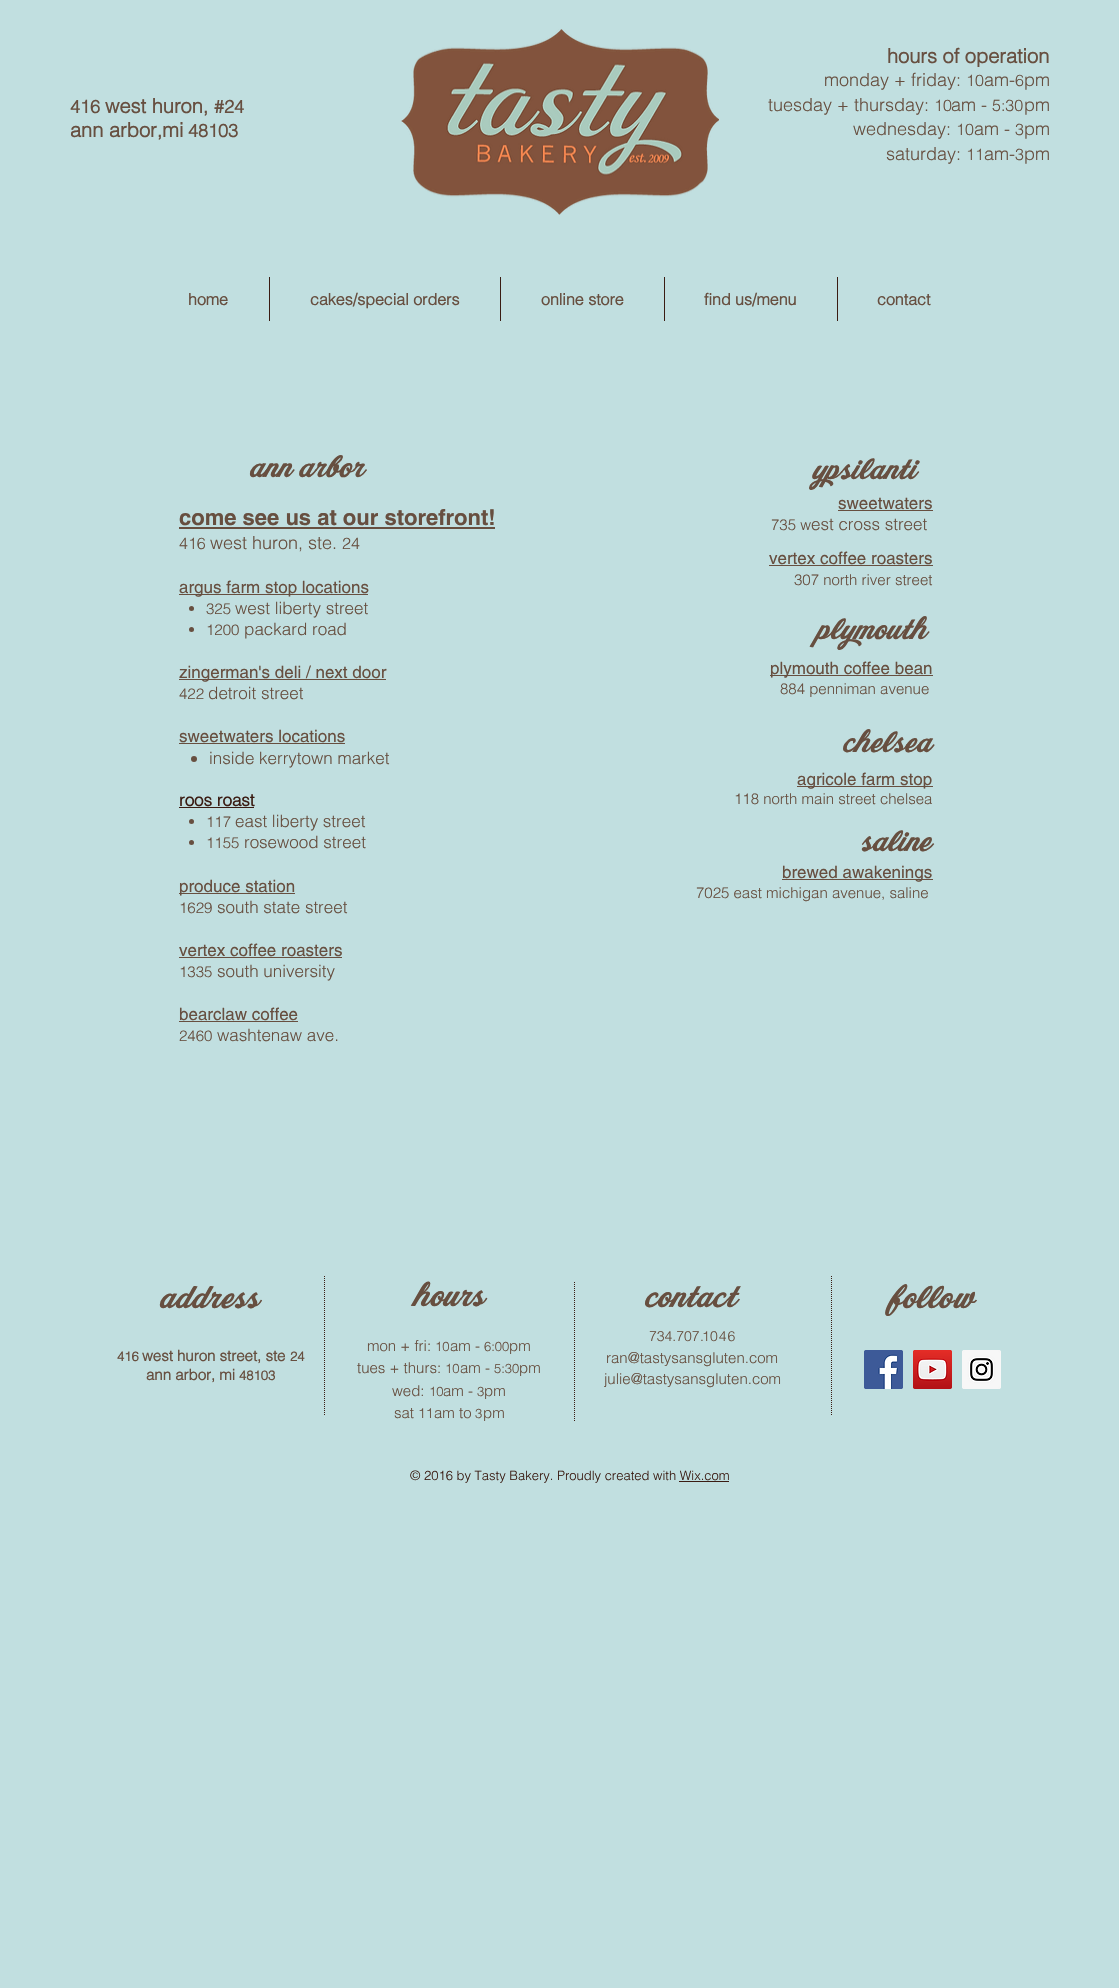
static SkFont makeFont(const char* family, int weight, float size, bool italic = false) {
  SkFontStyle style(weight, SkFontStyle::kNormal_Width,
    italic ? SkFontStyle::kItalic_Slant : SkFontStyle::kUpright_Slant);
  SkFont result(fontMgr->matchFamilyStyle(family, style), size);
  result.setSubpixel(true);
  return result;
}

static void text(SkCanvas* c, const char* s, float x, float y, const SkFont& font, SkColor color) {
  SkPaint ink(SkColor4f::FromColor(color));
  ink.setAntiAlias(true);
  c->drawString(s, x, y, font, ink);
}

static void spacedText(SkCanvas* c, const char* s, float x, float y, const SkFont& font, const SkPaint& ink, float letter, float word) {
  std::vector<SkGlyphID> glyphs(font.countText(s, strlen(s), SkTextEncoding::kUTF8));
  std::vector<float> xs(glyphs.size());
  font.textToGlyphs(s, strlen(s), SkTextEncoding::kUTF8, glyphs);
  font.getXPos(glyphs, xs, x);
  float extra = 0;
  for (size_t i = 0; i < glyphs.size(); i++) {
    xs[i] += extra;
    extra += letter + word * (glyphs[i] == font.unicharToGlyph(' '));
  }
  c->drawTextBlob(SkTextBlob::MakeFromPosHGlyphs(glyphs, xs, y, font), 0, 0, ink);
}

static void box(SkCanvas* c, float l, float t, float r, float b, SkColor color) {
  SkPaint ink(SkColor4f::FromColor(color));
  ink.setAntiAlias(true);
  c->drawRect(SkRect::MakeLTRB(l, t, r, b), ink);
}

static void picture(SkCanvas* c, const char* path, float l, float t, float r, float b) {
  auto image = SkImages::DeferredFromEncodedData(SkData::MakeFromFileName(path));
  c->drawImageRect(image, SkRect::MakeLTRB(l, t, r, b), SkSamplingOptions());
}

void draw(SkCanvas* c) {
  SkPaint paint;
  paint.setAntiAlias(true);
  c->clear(0xffc1dfe0);
  SkFont face1 = makeFont("helvetica", 700, 18);
  text(c, "416", 70, 113, face1, 0xff674f40);
  SkFont face2 = makeFont("helvetica", 700, 20);
  text(c, "west huron,", 105, 113, face2, 0xff674f40);
  text(c, "#24", 214, 113, face1, 0xff674f40);
  text(c, "ann arbor,mi", 70, 137, face2, 0xff674f40);
  text(c, "48103", 188, 137, face1, 0xff674f40);
  picture(c, "img_01.png", 401, 29, 719, 215);
  text(c, "hours of operation", 887, 63, face2, 0xff674f40);
  SkFont face3 = makeFont("helvetica", 300, 18);
  text(c, "monday + friday:", 824, 86, face3, 0xff674f40);
  SkFont face4 = makeFont("helvetica", 300, 16);
  text(c, "10", 966, 86, face4, 0xff674f40);
  text(c, "am-", 984, 86, face3, 0xff674f40);
  text(c, "6", 1015, 86, face4, 0xff674f40);
  text(c, "pm", 1024, 86, face3, 0xff674f40);
  text(c, "tuesday + thursday:", 768, 111, face3, 0xff674f40);
  text(c, "10", 934, 111, face4, 0xff674f40);
  text(c, "am -", 951, 111, face3, 0xff674f40);
  text(c, "5:30", 992, 111, face4, 0xff674f40);
  text(c, "pm", 1024, 111, face3, 0xff674f40);
  text(c, "wednesday:", 853, 135, face3, 0xff674f40);
  text(c, "10", 956, 135, face4, 0xff674f40);
  text(c, "am -", 974, 135, face3, 0xff674f40);
  text(c, "3", 1015, 135, face4, 0xff674f40);
  text(c, "pm", 1024, 135, face3, 0xff674f40);
  text(c, "saturday:", 886, 160, face3, 0xff674f40);
  text(c, "11", 966, 160, face4, 0xff674f40);
  text(c, "am-", 984, 160, face3, 0xff674f40);
  text(c, "3", 1015, 160, face4, 0xff674f40);
  text(c, "pm", 1024, 160, face3, 0xff674f40);
  SkFont face5 = makeFont("helvetica", 700, 16);
  text(c, "home", 188, 305, face5, 0xff674f40);
  box(c, 269, 277, 270, 321, 0xff3a1c13);
  text(c, "cakes/special orders", 310, 305, face5, 0xff674f40);
  box(c, 500, 277, 501, 321, 0xff3a1c13);
  text(c, "online store", 541, 305, face5, 0xff674f40);
  box(c, 664, 277, 665, 321, 0xff3a1c13);
  text(c, "find us/menu", 704, 305, face5, 0xff674f40);
  box(c, 837, 277, 838, 321, 0xff3a1c13);
  text(c, "contact", 877, 305, face5, 0xff674f40);
  SkFont face6 = makeFont("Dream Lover", 700, 30);
  text(c, "ann arbor", 251, 477, face6, 0xff674f40);
  text(c, "ypsilanti", 814, 479, face6, 0xff674f40);
  SkFont face7 = makeFont("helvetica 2", 700, 22);
  text(c, "come see us at our storefront!", 179, 525, face7, 0xff674f40);
  box(c, 179, 527, 495, 529, 0xff674f40);
  text(c, "416", 179, 549, face4, 0xff674f40);
  text(c, "west huron, ste.", 210, 549, face3, 0xff674f40);
  text(c, "24", 342, 549, face4, 0xff674f40);
  box(c, 179, 594, 368, 595, 0xff674f40);
  SkFont face8 = makeFont("helvetica", 400, 17);
  text(c, "argus farm stop locations", 179, 593, face8, 0xff674f40);
  paint.setColor(0xff674f40);
  c->drawCircle(191.5f, 608.5f, 2.5f, paint);
  SkFont face9 = makeFont("helvetica", 300, 15);
  text(c, "325", 206, 614, face9, 0xff674f40);
  SkFont face10 = makeFont("helvetica", 300, 17);
  text(c, "west liberty street", 235, 614, face10, 0xff674f40);
  c->drawCircle(191.5f, 629.5f, 2.5f, paint);
  text(c, "1200", 206, 635, face9, 0xff674f40);
  text(c, "packard road", 244, 635, face10, 0xff674f40);
  box(c, 179, 679, 386, 680, 0xff674f40);
  text(c, "zingerman's deli / next door", 179, 678, face8, 0xff674f40);
  text(c, "422", 179, 699, face9, 0xff674f40);
  text(c, "detroit street", 208, 699, face10, 0xff674f40);
  text(c, "sweetwaters locations", 179, 742, face8, 0xff674f40);
  box(c, 179, 743, 345, 744, 0xff674f40);
  c->drawCircle(194, 759, 3, paint);
  text(c, "inside kerrytown market", 209, 764, face10, 0xff674f40);
  SkFont face11 = makeFont("helvetica", 700, 17);
  text(c, "roos roast", 179, 806, face11, 0xff3a1c13);
  box(c, 179, 807, 254, 808, 0xff3a1c13);
  c->drawCircle(191.5f, 821.5f, 2.5f, paint);
  text(c, "117", 206, 827, face9, 0xff674f40);
  text(c, "east liberty street", 235, 827, face10, 0xff674f40);
  c->drawCircle(191.5f, 842.5f, 2.5f, paint);
  text(c, "1155", 206, 848, face9, 0xff674f40);
  text(c, "rosewood street", 244, 848, face10, 0xff674f40);
  box(c, 179, 893, 295, 894, 0xff674f40);
  text(c, "produce station", 179, 892, face8, 0xff674f40);
  text(c, "1629", 179, 913, face9, 0xff674f40);
  text(c, "south state street", 217, 913, face10, 0xff674f40);
  text(c, "vertex coffee roasters", 179, 956, face8, 0xff674f40);
  box(c, 179, 957, 342, 958, 0xff674f40);
  text(c, "1335", 179, 977, face9, 0xff674f40);
  text(c, "south university", 217, 977, face10, 0xff674f40);
  text(c, "bearclaw coffee", 179, 1020, face8, 0xff674f40);
  box(c, 179, 1021, 298, 1022, 0xff674f40);
  text(c, "2460", 179, 1041, face9, 0xff674f40);
  text(c, "washtenaw ave.", 217, 1041, face10, 0xff674f40);
  text(c, "sweetwaters", 838, 509, face8, 0xff674f40);
  box(c, 838, 510, 933, 511, 0xff674f40);
  text(c, "735 w", 771, 530, face9, 0xff674f40);
  text(c, "est cross street", 811, 530, face10, 0xff674f40);
  text(c, "vertex coffee roasters", 769, 564, face8, 0xff674f40);
  box(c, 769, 565, 933, 566, 0xff674f40);
  text(c, "307 north river street", 794, 585, face9, 0xff674f40);
  text(c, "plymouth", 818, 639, face6, 0xff674f40);
  box(c, 770, 675, 933, 676, 0xff674f40);
  text(c, "plymouth coffee bean", 770, 674, face8, 0xff674f40);
  text(c, "884 penniman avenue", 780, 694, face9, 0xff674f40);
  text(c, "chelsea", 844, 752, face6, 0xff674f40);
  box(c, 797, 786, 933, 787, 0xff674f40);
  text(c, "agricole farm stop", 797, 785, face8, 0xff674f40);
  text(c, "118 north main street chelsea", 734, 804, face9, 0xff674f40);
  text(c, "saline", 862, 851, face6, 0xff674f40);
  box(c, 782, 879, 933, 880, 0xff674f40);
  text(c, "brewed awakenings", 782, 878, face8, 0xff674f40);
  text(c, "7025 east michigan avenue, saline", 696, 898, face9, 0xff674f40);
  paint.setStyle(SkPaint::kStroke_Style);
  paint.setStrokeWidth(1);
  paint.setColor(0xff3a1c13);
  paint.setPathEffect(SkDashPathEffect::Make({{1, 1}}, 0));
  c->drawPath(SkPathBuilder().moveTo(324.5f, 1276).lineTo(324.5f, 1415).detach(), paint);
  paint.setPathEffect(nullptr);
  paint.setPathEffect(SkDashPathEffect::Make({{1, 1}}, 0));
  c->drawPath(SkPathBuilder().moveTo(574.5f, 1282).lineTo(574.5f, 1421).detach(), paint);
  paint.setPathEffect(nullptr);
  paint.setPathEffect(SkDashPathEffect::Make({{1, 1}}, 0));
  c->drawPath(SkPathBuilder().moveTo(831.5f, 1276).lineTo(831.5f, 1415).detach(), paint);
  paint.setPathEffect(nullptr);
  SkFont face12 = makeFont("Dream Lover", 700, 32);
  text(c, "address", 161, 1308, face12, 0xff674f40);
  text(c, "hours", 415, 1306, face12, 0xff674f40);
  text(c, "contact", 646, 1307, face12, 0xff674f40);
  text(c, "follow", 890, 1308, face12, 0xff674f40);
  SkFont face13 = makeFont("helvetica", 700, 13);
  text(c, "416", 117, 1361, face13, 0xff674f40);
  SkFont face14 = makeFont("helvetica", 700, 15);
  text(c, "west huron street, ste", 142, 1361, face14, 0xff674f40);
  text(c, "24", 290, 1361, face13, 0xff674f40);
  text(c, "ann arbor, mi", 146, 1380, face14, 0xff674f40);
  text(c, "48103", 239, 1380, face13, 0xff674f40);
  text(c, "mon + fri:", 367, 1351, face9, 0xff674f40);
  SkFont face15 = makeFont("helvetica", 300, 13);
  text(c, "10", 435, 1351, face15, 0xff674f40);
  text(c, "am -", 450, 1351, face9, 0xff674f40);
  text(c, "6:00", 484, 1351, face15, 0xff674f40);
  text(c, "pm", 509, 1351, face9, 0xff674f40);
  text(c, "tues + thurs:", 357, 1373, face9, 0xff674f40);
  text(c, "10", 445, 1373, face15, 0xff674f40);
  text(c, "am -", 460, 1373, face9, 0xff674f40);
  text(c, "5:30", 494, 1373, face15, 0xff674f40);
  text(c, "pm", 519, 1373, face9, 0xff674f40);
  text(c, "wed:", 392, 1396, face9, 0xff674f40);
  text(c, "10", 429, 1396, face15, 0xff674f40);
  text(c, "am -", 443, 1396, face9, 0xff674f40);
  text(c, "3", 477, 1396, face15, 0xff674f40);
  text(c, "pm", 484, 1396, face9, 0xff674f40);
  text(c, "sat", 394, 1418, face9, 0xff674f40);
  SkFont face16 = makeFont("helvetica", 300, 14);
  text(c, "11", 418, 1418, face16, 0xff674f40);
  text(c, "am to", 434, 1418, face9, 0xff674f40);
  text(c, "3", 475, 1418, face15, 0xff674f40);
  text(c, "pm", 483, 1418, face9, 0xff674f40);
  text(c, "734.707", 649, 1341, face16, 0xff674f40);
  paint.setStyle(SkPaint::kFill_Style);
  paint.setColor(0xff674f40);
  spacedText(c, ".", 700, 1341, face16, paint, -1, 0);
  text(c, "1", 702, 1341, face16, 0xff674f40);
  spacedText(c, "046", 710, 1341, face16, paint, 1, 0);
  text(c, "ran@tastysansgluten.com", 606, 1363, face9, 0xff674f40);
  text(c, "julie@tastysansgluten.com", 604, 1384, face9, 0xff674f40);
  picture(c, "img_02.png", 864, 1350, 903, 1389);
  picture(c, "img_03.png", 913, 1350, 952, 1389);
  picture(c, "img_04.png", 962, 1350, 1001, 1389);
  text(c, "© 2016 by Tasty Bakery. Proudly created with Wix.com", 410, 1480, face15, 0xff3a1c13);
  box(c, 679, 1481, 729, 1482, 0xff3a1c13);
}
